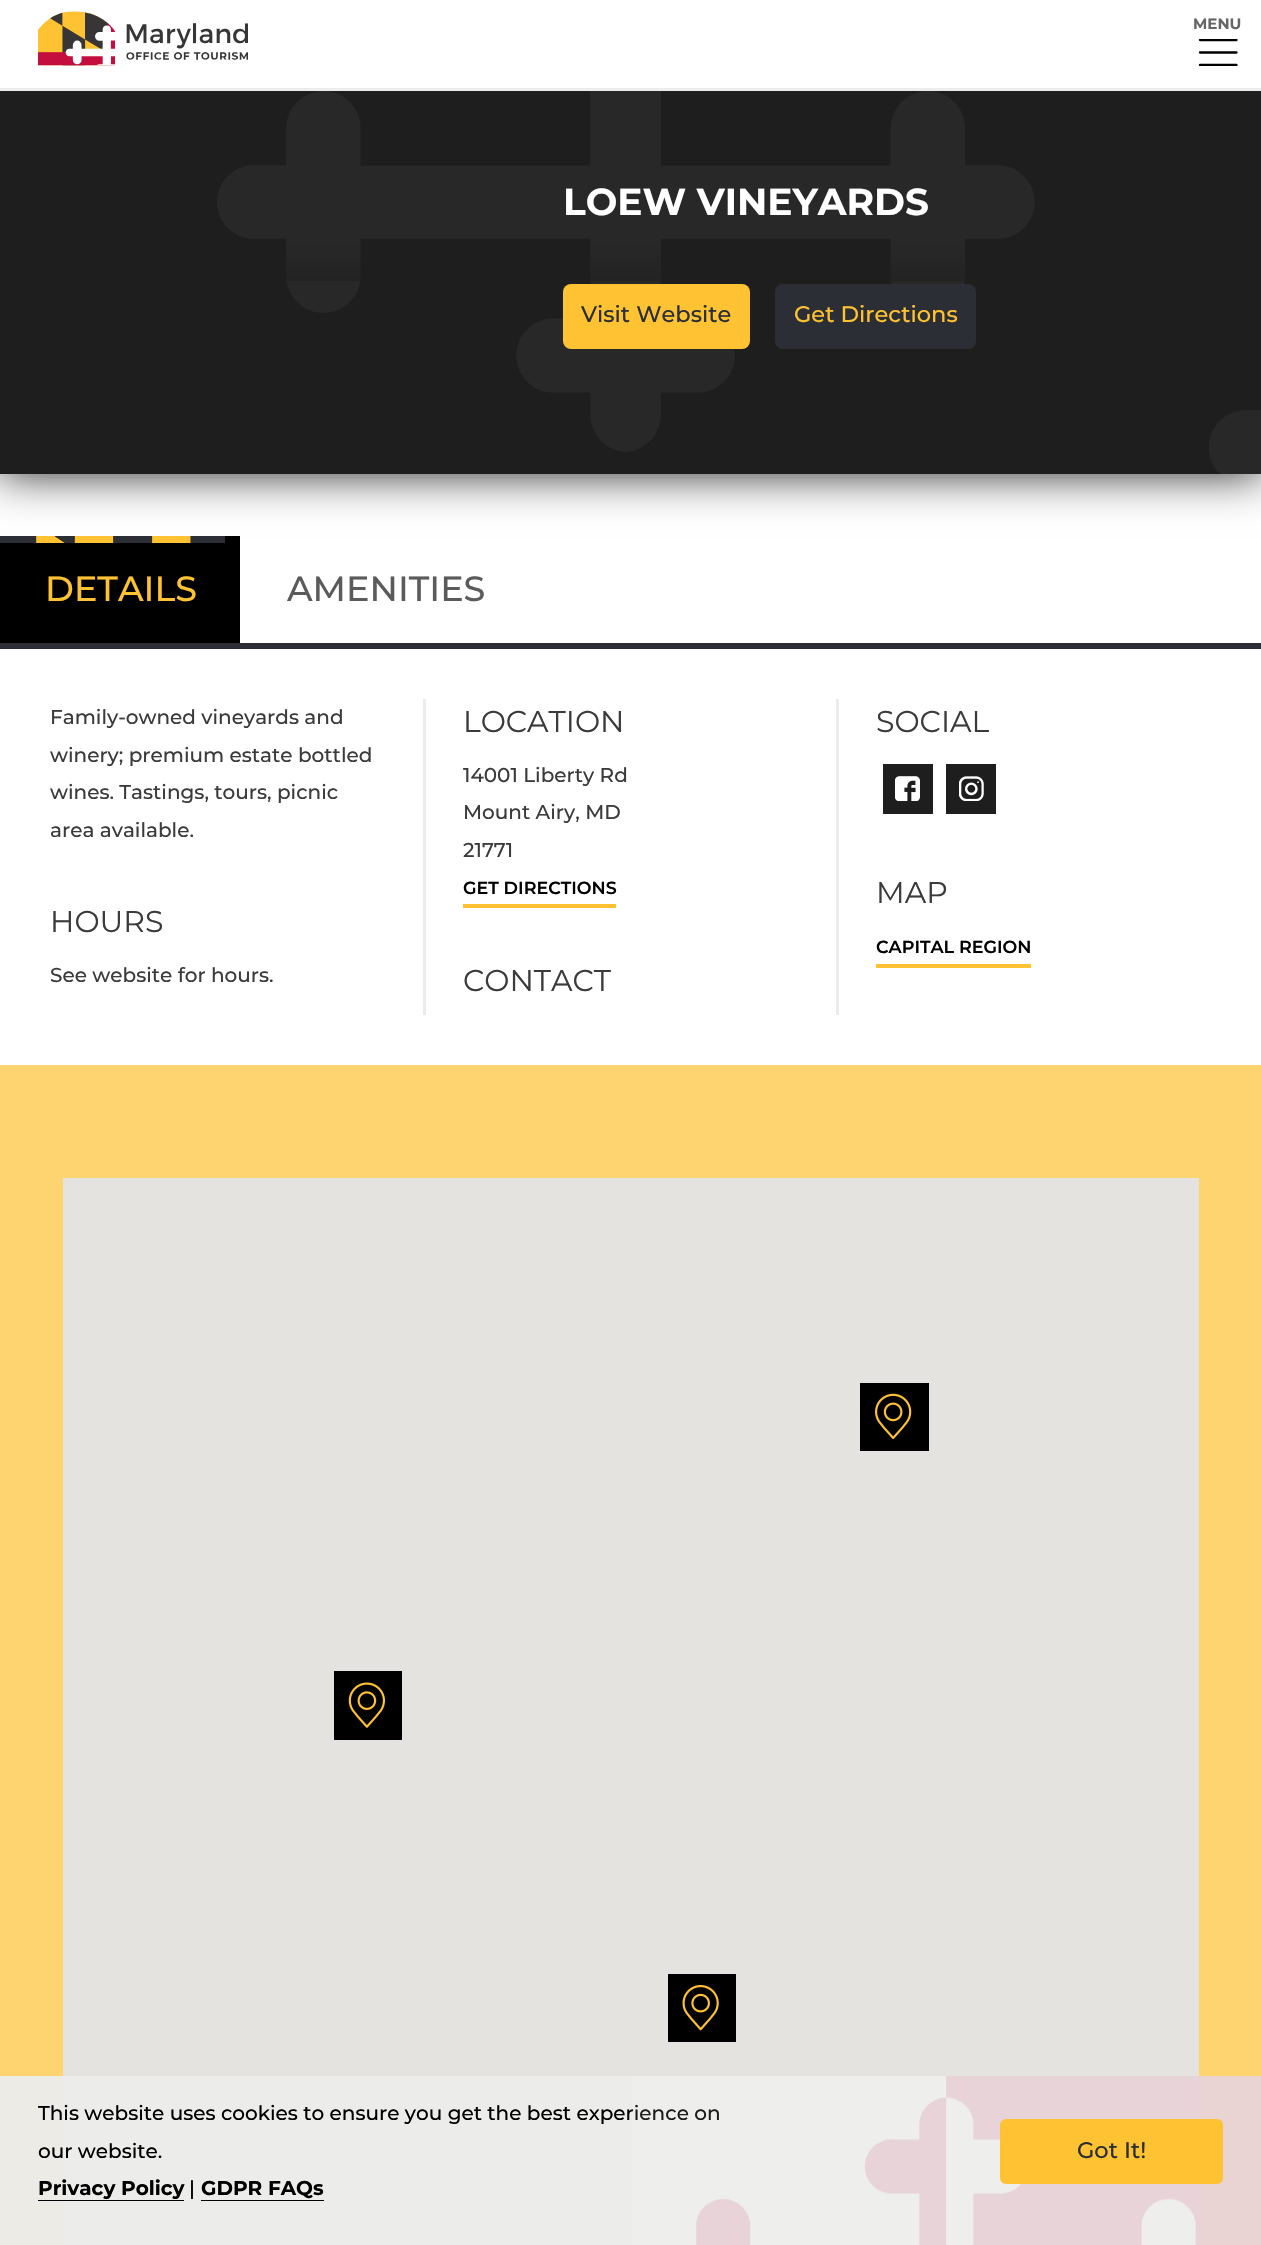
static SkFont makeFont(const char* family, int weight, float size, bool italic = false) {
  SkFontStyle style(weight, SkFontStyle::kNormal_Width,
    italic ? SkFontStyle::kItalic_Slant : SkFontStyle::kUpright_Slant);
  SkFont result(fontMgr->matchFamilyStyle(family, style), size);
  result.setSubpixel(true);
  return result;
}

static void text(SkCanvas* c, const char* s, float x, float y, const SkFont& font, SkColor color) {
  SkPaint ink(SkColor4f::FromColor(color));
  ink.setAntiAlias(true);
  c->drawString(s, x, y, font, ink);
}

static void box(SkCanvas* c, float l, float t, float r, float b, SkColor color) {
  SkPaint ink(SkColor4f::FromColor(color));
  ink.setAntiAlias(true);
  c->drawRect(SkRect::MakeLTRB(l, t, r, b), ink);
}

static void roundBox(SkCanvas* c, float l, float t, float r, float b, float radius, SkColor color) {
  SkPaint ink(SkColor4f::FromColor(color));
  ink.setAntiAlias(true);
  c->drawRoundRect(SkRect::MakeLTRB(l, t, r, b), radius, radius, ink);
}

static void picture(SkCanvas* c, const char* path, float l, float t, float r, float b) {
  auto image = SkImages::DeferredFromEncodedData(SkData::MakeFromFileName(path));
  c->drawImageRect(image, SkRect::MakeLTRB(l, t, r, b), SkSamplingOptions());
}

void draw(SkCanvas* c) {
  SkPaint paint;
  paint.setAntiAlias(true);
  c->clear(0xffffffff);
  box(c, 0, 88, 1261, 91, 0xffececec);
  picture(c, "img_01.png", 38, 11, 248, 66);
  SkFont face1 = makeFont("Montserrat", 700, 15);
  text(c, "MENU", 1193, 29, face1, 0xff666666);
  c->save();
  c->clipRect(SkRect::MakeLTRB(1198, 39, 1239, 66));
  paint.setStyle(SkPaint::kStroke_Style);
  paint.setStrokeWidth(2.3f);
  paint.setStrokeCap(SkPaint::kRound_Cap);
  paint.setColor(0xff000000);
  c->drawPath(SkPathBuilder().moveTo(1200, 40).lineTo(1236.5f, 40).detach(), paint);
  c->restore();
  c->drawPath(SkPathBuilder().moveTo(1200, 52.5f).lineTo(1236.5f, 52.5f).detach(), paint);
  c->save();
  c->clipRect(SkRect::MakeLTRB(1198, 39, 1239, 66));
  c->drawPath(SkPathBuilder().moveTo(1200, 65).lineTo(1236.5f, 65).detach(), paint);
  c->restore();
  box(c, 0, 91, 1261, 474, 0xff1e1e1e);
  picture(c, "img_02.png", 217, 91, 1035, 452);
  picture(c, "img_03.png", 1209, 410, 1261, 474);
  c->save();
  c->clipPath(SkPathBuilder(SkPathFillType::kEvenOdd).moveTo(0, 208).lineTo(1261, 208).lineTo(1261, 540).lineTo(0, 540).close().moveTo(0, 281).lineTo(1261, 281).lineTo(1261, 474).lineTo(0, 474).close().detach(), true);
  paint.setStyle(SkPaint::kFill_Style);
  paint.setColor(0xff1e1e1e);
  paint.setMaskFilter(SkMaskFilter::MakeBlur(kNormal_SkBlurStyle, 22));
  c->drawRect(SkRect::MakeLTRB(-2, 275, 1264, 473), paint);
  paint.setMaskFilter(nullptr);
  c->restore();
  SkFont face2 = makeFont("Montserrat", 700, 37.5f);
  text(c, "LOEW VINEYARDS", 563, 215, face2, 0xffffffff);
  roundBox(c, 563, 284, 750, 349, 8, 0xfffec232);
  SkFont face3 = makeFont("Montserrat", 500, 22.5f);
  text(c, "Visit Website", 581, 322, face3, 0xff2b2e34);
  roundBox(c, 775, 284, 976, 349, 8, 0xff2b2e34);
  text(c, "Get Directions", 794, 322, face3, 0xfffec232);
  box(c, 0, 643, 1261, 649, 0xff2b2e34);
  box(c, 0, 536, 240, 643, 0xff000000);
  picture(c, "img_04.png", 0, 536, 225, 543);
  SkFont face4 = makeFont("Montserrat", 500, 35);
  text(c, "DETAILS", 45, 601, face4, 0xfffec232);
  text(c, "AMENITIES", 287, 601, face4, 0xff5b5b5b);
  SkFont face5 = makeFont("Montserrat", 500, 20);
  text(c, "Family-owned vineyards and", 50, 724, face5, 0xff3b3b3b);
  text(c, "winery; premium estate bottled", 50, 762, face5, 0xff3b3b3b);
  text(c, "wines. Tastings, tours, picnic", 50, 799, face5, 0xff3b3b3b);
  text(c, "area available.", 50, 837, face5, 0xff3b3b3b);
  SkFont face6 = makeFont("Montserrat", 400, 30);
  text(c, "HOURS", 50, 932, face6, 0xff3b3b3b);
  text(c, "See website for hours.", 50, 982, face5, 0xff3b3b3b);
  box(c, 423, 699, 426, 1015, 0xffececec);
  text(c, "LOCATION", 463, 732, face6, 0xff3b3b3b);
  text(c, "14001 Liberty Rd", 463, 782, face5, 0xff3b3b3b);
  text(c, "Mount Airy, MD", 463, 819, face5, 0xff3b3b3b);
  text(c, "21771", 463, 857, face5, 0xff3b3b3b);
  box(c, 463, 904, 616, 908, 0xfffec232);
  SkFont face7 = makeFont("Montserrat", 600, 17.5f);
  text(c, "GET DIRECTIONS", 463, 894, face7, 0xff000000);
  text(c, "CONTACT", 463, 991, face6, 0xff3b3b3b);
  box(c, 836, 699, 839, 1015, 0xffececec);
  text(c, "SOCIAL", 876, 732, face6, 0xff3b3b3b);
  box(c, 883, 764, 933, 814, 0xff1e1e1e);
  picture(c, "img_05.png", 895, 776, 920, 801);
  box(c, 946, 764, 996, 814, 0xff1e1e1e);
  picture(c, "img_06.png", 959, 776, 984, 801);
  text(c, "MAP", 876, 903, face6, 0xff3b3b3b);
  box(c, 876, 964, 1031, 968, 0xfffec232);
  text(c, "CAPITAL REGION", 876, 953, face7, 0xff000000);
  box(c, 0, 1065, 1261, 2076, 0xfffdd46f);
  box(c, 0, 2076, 1261, 2245, 0xffedebe6);
  box(c, 63, 1178, 1199, 2076, 0xffe5e3df);
  box(c, 63, 2076, 1199, 2245, 0xffececeb);
  picture(c, "img_07.png", 860, 1383, 929, 1451);
  picture(c, "img_08.png", 334, 1671, 402, 1740);
  picture(c, "img_09.png", 668, 1974, 736, 2042);
  text(c, "This website uses cookies to ensure you get the best experience on", 38, 2120, face5, 0xff000000);
  picture(c, "img_10.png", 631, 2076, 1261, 2245);
  text(c, "our website.", 38, 2158, face5, 0xff000000);
  SkFont face8 = makeFont("Montserrat", 700, 20);
  text(c, "Privacy Policy", 38, 2195, face8, 0xff000000);
  box(c, 38, 2200, 184, 2201, 0xff000000);
  text(c, "|", 189, 2195, face5, 0xff000000);
  text(c, "GDPR FAQs", 201, 2195, face8, 0xff000000);
  box(c, 201, 2200, 324, 2201, 0xff000000);
  roundBox(c, 1000, 2119, 1223, 2184, 6, 0xfffec232);
  text(c, "Got It!", 1077, 2158, face3, 0xff2b2e34);
}
